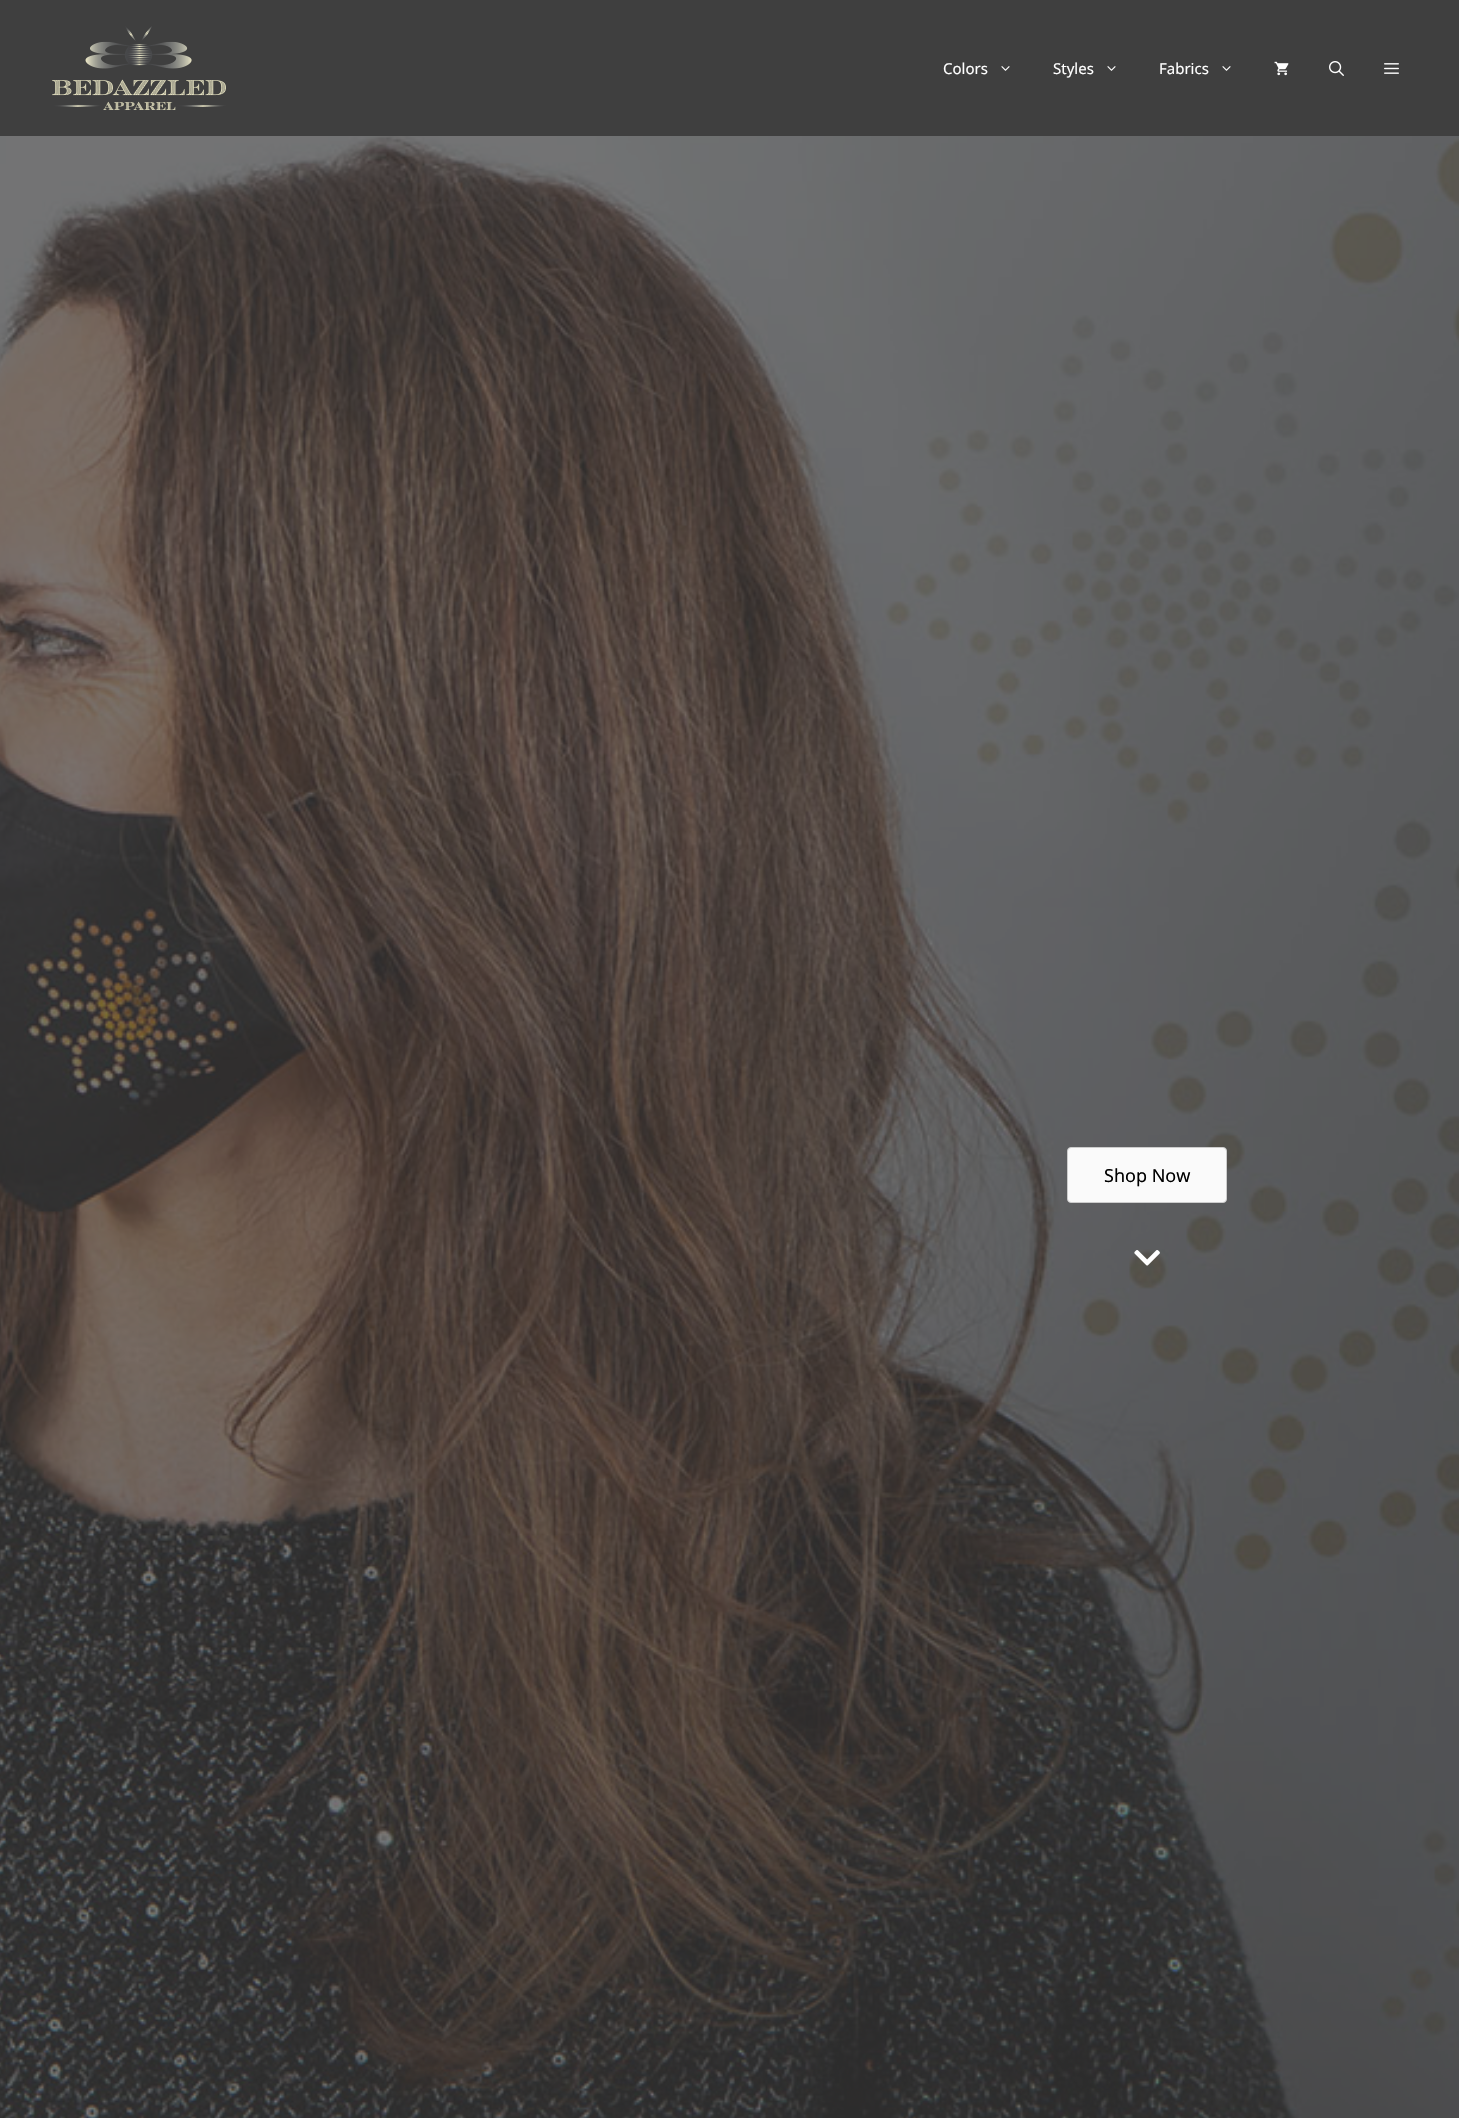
static SkFont makeFont(const char* family, int weight, float size, bool italic = false) {
  SkFontStyle style(weight, SkFontStyle::kNormal_Width,
    italic ? SkFontStyle::kItalic_Slant : SkFontStyle::kUpright_Slant);
  SkFont result(fontMgr->matchFamilyStyle(family, style), size);
  result.setSubpixel(true);
  return result;
}

static void text(SkCanvas* c, const char* s, float x, float y, const SkFont& font, SkColor color) {
  SkPaint ink(SkColor4f::FromColor(color));
  ink.setAntiAlias(true);
  c->drawString(s, x, y, font, ink);
}

static void picture(SkCanvas* c, const char* path, float l, float t, float r, float b) {
  auto image = SkImages::DeferredFromEncodedData(SkData::MakeFromFileName(path));
  c->drawImageRect(image, SkRect::MakeLTRB(l, t, r, b), SkSamplingOptions());
}

void draw(SkCanvas* c) {
  SkPaint paint;
  paint.setAntiAlias(true);
  c->clear(0xff3f3f3f);
  picture(c, "img_01.png", 52, 26, 226, 110);
  SkFont face1 = makeFont("Noto Sans", 400, 15);
  text(c, "Colors", 943, 74, face1, 0xffffffff);
  picture(c, "img_02.png", 1001, 66, 1010, 71);
  text(c, "Styles", 1053, 74, face1, 0xffffffff);
  picture(c, "img_02.png", 1107, 66, 1116, 71);
  text(c, "Fabrics", 1159, 74, face1, 0xffffffff);
  picture(c, "img_02.png", 1222, 66, 1231, 71);
  picture(c, "img_03.png", 1274, 61, 1289, 76);
  picture(c, "img_04.png", 1329, 61, 1344, 76);
  picture(c, "img_05.png", 1384, 63, 1399, 74);
  picture(c, "img_06.png", 0, 136, 1459, 2118);
  paint.setColor(0xfffafafa);
  c->drawRoundRect(SkRect::MakeLTRB(1067.5f, 1147.5f, 1226.5f, 1202.5f), 3.5f, 3.5f, paint);
  paint.setStyle(SkPaint::kStroke_Style);
  paint.setStrokeWidth(1);
  paint.setColor(0xffcccccc);
  c->drawRoundRect(SkRect::MakeLTRB(1067.5f, 1147.5f, 1226.5f, 1202.5f), 3.5f, 3.5f, paint);
  SkFont face2 = makeFont("Noto Sans", 400, 18);
  text(c, "Shop Now", 1104, 1182, face2, 0xff000000);
  picture(c, "img_07.png", 1134, 1250, 1160, 1266);
}
